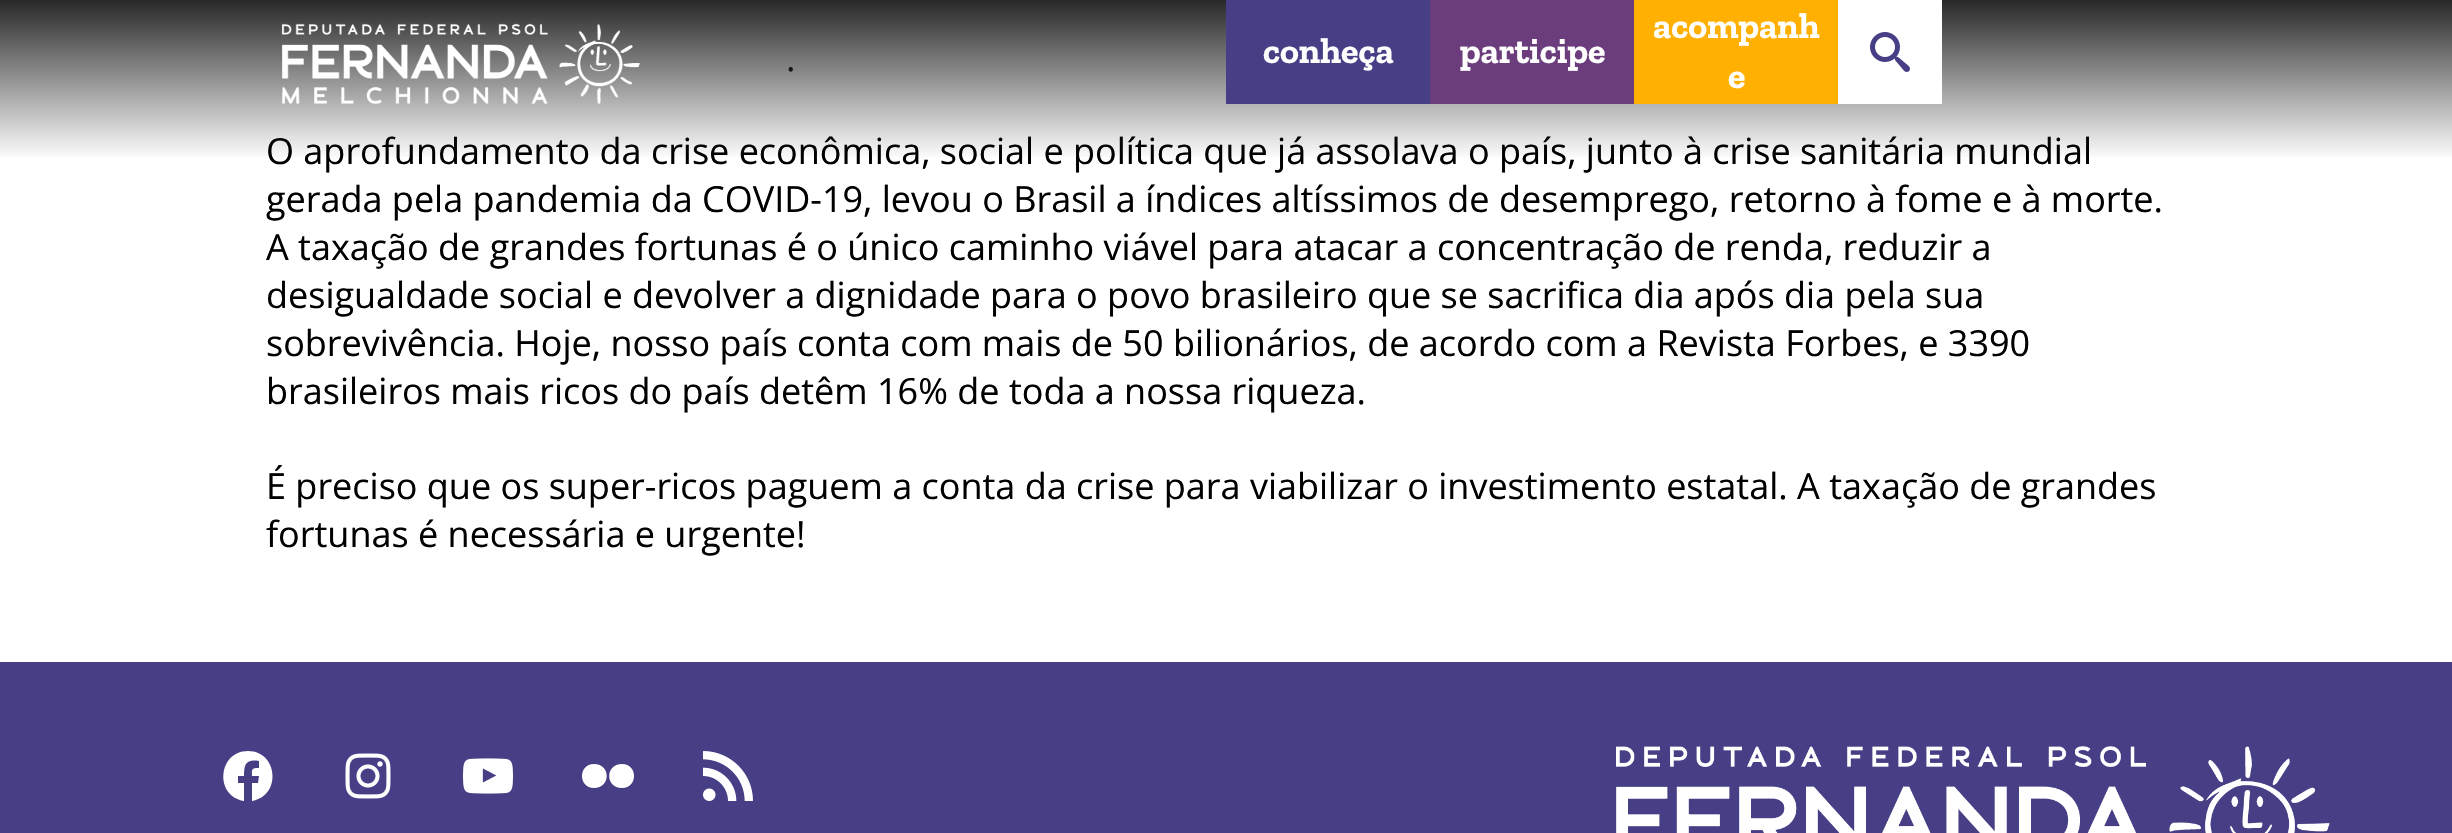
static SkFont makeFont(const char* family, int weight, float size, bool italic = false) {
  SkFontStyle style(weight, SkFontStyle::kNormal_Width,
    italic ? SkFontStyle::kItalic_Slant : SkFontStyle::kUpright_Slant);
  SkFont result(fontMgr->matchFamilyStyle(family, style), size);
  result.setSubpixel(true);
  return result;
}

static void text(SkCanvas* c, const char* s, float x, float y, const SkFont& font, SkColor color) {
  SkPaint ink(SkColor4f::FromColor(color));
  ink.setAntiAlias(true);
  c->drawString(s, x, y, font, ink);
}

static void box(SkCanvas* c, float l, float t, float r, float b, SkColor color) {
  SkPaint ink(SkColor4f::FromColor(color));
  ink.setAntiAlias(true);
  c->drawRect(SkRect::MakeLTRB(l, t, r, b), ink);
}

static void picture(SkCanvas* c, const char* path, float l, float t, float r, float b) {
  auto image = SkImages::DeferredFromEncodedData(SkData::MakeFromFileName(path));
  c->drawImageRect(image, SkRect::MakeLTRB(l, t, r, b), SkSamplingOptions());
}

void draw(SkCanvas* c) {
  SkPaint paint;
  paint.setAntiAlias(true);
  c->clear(0xffffffff);
  SkFont face1 = makeFont("Open Sans", 400, 36);
  text(c, ".", 786, 71, face1, 0xff000000);
  text(c, "O aprofundamento da crise econômica, social e política que já assolava o país, junto à crise sanitária mundial", 266, 164, face1, 0xff000000);
  {
    const SkColor colors[] = {0xff282828, 0x00282828};
    const float stops[] = {0, 1};
    const SkPoint ends[] = {{1226, 0}, {1226, 160}};
    paint.setShader(SkGradientShader::MakeLinear(ends, colors, stops, 2, SkTileMode::kClamp));
    paint.setAlpha(255);
  }
  c->drawRect(SkRect::MakeLTRB(0, 0, 2452, 157), paint);
  picture(c, "img_01.png", 281, 23, 641, 104);
  box(c, 1226, 0, 1430, 104, 0xff463f85);
  SkFont face2 = makeFont("Zilla Slab", 700, 36);
  text(c, "conheça", 1263, 63, face2, 0xffffffff);
  box(c, 1430, 0, 1634, 104, 0xff6b3d7c);
  text(c, "participe", 1460, 63, face2, 0xffffffff);
  box(c, 1634, 0, 1838, 104, 0xffffb000);
  text(c, "acompanh", 1653, 38, face2, 0xffffffff);
  text(c, "e", 1728, 88, face2, 0xffffffff);
  box(c, 1838, 0, 1942, 104, 0xffffffff);
  picture(c, "img_02.png", 1870, 32, 1910, 72);
  text(c, "gerada pela pandemia da COVID-19, levou o Brasil a índices altíssimos de desemprego, retorno à fome e à morte.", 266, 212, face1, 0xff000000);
  text(c, "A taxação de grandes fortunas é o único caminho viável para atacar a concentração de renda, reduzir a", 266, 260, face1, 0xff000000);
  text(c, "desigualdade social e devolver a dignidade para o povo brasileiro que se sacrifica dia após dia pela sua", 266, 308, face1, 0xff000000);
  text(c, "sobrevivência. Hoje, nosso país conta com mais de 50 bilionários, de acordo com a Revista Forbes, e 3390", 266, 356, face1, 0xff000000);
  text(c, "brasileiros mais ricos do país detêm 16% de toda a nossa riqueza.", 266, 404, face1, 0xff000000);
  text(c, "É preciso que os super-ricos paguem a conta da crise para viabilizar o investimento estatal. A taxação de grandes", 266, 499, face1, 0xff000000);
  text(c, "fortunas é necessária e urgente!", 266, 547, face1, 0xff000000);
  box(c, 0, 662, 2452, 833, 0xff463f85);
  paint.setShader(nullptr);
  paint.setColor(0xffffffff);
  c->drawPath(SkPathBuilder().moveTo(248, 751).cubicTo(218, 751, 214, 796, 244, 801).lineTo(244, 783).lineTo(238, 783).lineTo(238, 776).lineTo(244, 776).cubicTo(244, 764, 246, 759, 259, 761).lineTo(259, 768).cubicTo(251, 768, 252, 769, 252, 776).lineTo(259, 776).lineTo(258, 783).lineTo(252, 783).lineTo(252, 801).cubicTo(282, 796, 278, 751, 248, 751).close().detach(), paint);
  picture(c, "img_03.png", 345, 753, 391, 799);
  picture(c, "img_04.png", 463, 758, 513, 794);
  c->drawPath(SkPathBuilder().moveTo(594, 764).cubicTo(578, 764, 578, 788, 594, 788).cubicTo(611, 788, 611, 764, 594, 764).close().moveTo(622, 764).cubicTo(605, 764, 605, 788, 622, 788).cubicTo(638, 788, 638, 764, 622, 764).close().detach(), paint);
  picture(c, "img_05.png", 703, 751, 753, 801);
  picture(c, "img_06.png", 1616, 746, 2330, 833);
}
